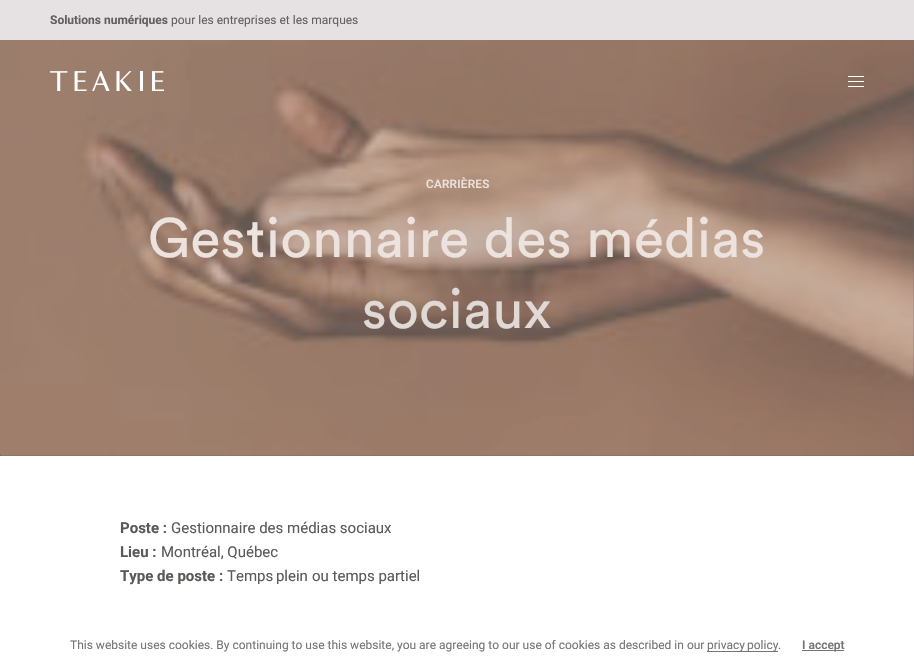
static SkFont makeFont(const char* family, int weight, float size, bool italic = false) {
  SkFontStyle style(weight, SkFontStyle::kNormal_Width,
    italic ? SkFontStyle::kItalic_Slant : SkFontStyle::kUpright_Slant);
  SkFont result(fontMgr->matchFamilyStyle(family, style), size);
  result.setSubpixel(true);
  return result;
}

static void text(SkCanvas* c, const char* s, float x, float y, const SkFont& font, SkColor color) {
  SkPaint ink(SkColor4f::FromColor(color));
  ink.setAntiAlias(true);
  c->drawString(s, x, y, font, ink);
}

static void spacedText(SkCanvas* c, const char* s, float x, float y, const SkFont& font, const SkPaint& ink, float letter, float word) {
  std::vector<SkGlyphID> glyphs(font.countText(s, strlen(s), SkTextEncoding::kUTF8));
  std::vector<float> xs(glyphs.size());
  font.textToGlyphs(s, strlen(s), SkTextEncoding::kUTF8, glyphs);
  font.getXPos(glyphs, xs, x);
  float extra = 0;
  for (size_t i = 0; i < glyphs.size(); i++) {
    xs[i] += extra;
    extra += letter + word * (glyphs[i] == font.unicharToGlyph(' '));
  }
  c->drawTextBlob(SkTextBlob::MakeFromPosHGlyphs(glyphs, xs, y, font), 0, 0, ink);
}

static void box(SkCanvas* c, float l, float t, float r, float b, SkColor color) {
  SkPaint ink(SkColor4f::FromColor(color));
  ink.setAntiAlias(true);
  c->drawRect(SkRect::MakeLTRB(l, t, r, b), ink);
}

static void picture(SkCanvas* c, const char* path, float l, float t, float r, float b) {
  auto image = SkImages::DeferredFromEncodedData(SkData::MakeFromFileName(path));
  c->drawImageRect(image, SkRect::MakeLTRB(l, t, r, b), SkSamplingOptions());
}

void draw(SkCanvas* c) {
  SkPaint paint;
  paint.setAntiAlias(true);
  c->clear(0xffffffff);
  box(c, 0, 0, 914, 40, 0xffe6e2e3);
  SkFont face1 = makeFont("Roboto", 700, 12);
  text(c, "Solutions numériques", 50, 24, face1, 0xff606060);
  SkFont face2 = makeFont("Roboto", 400, 12);
  text(c, "pour les entreprises et les marques", 171, 24, face2, 0xff606060);
  box(c, 0, 40, 914, 456, 0xff676767);
  picture(c, "img_02.png", 0, 40, 914, 456);
  picture(c, "img_01.png", 50, 71, 164, 91);
  box(c, 848, 76, 864, 77, 0xffffffff);
  box(c, 848, 81, 864, 82, 0xffffffff);
  box(c, 848, 86, 864, 87, 0xffffffff);
  SkFont face3 = makeFont("Roboto", 500, 11.75f);
  paint.setColor(0xffece3de);
  spacedText(c, "CARRIÈRES", 426, 188, face3, paint, 0.25f, 0);
  SkFont face4 = makeFont("Circular", 400, 54.9f);
  spacedText(c, "Gestionnaire des médias", 148, 257, face4, paint, 0.5f, 0);
  paint.setColor(0xffe0d9d6);
  spacedText(c, "sociaux", 362, 328, face4, paint, 0.5f, 0);
  SkFont face5 = makeFont("Roboto", 700, 15);
  text(c, "Poste :", 120, 533, face5, 0xff595957);
  SkFont face6 = makeFont("Roboto", 400, 15);
  text(c, "Gestionnaire des médias sociaux", 171, 533, face6, 0xff595957);
  text(c, "Lieu :", 120, 557, face5, 0xff595957);
  text(c, "Montréal, Québec", 161, 557, face6, 0xff595957);
  text(c, "Type de poste :", 120, 581, face5, 0xff595957);
  paint.setColor(0xff595957);
  spacedText(c, "Temps plein", 227, 581, face6, paint, 0, -1);
  text(c, "ou temps partiel", 312, 581, face6, 0xff595957);
  text(c, "This website uses cookies. By continuing to use this website, you are agreeing to our use of cookies as described in our", 70, 649, face2, 0xff757575);
  box(c, 707, 651, 778, 652, 0xff757575);
  paint.setColor(0xff757575);
  spacedText(c, "privacy policy", 707, 649, face2, paint, 0, -1);
  text(c, ".", 778, 649, face2, 0xff757575);
  box(c, 802, 650, 844, 651, 0xff757575);
  SkFont face7 = makeFont("Roboto", 600, 12);
  text(c, "I accept", 802, 649, face7, 0xff757575);
}
